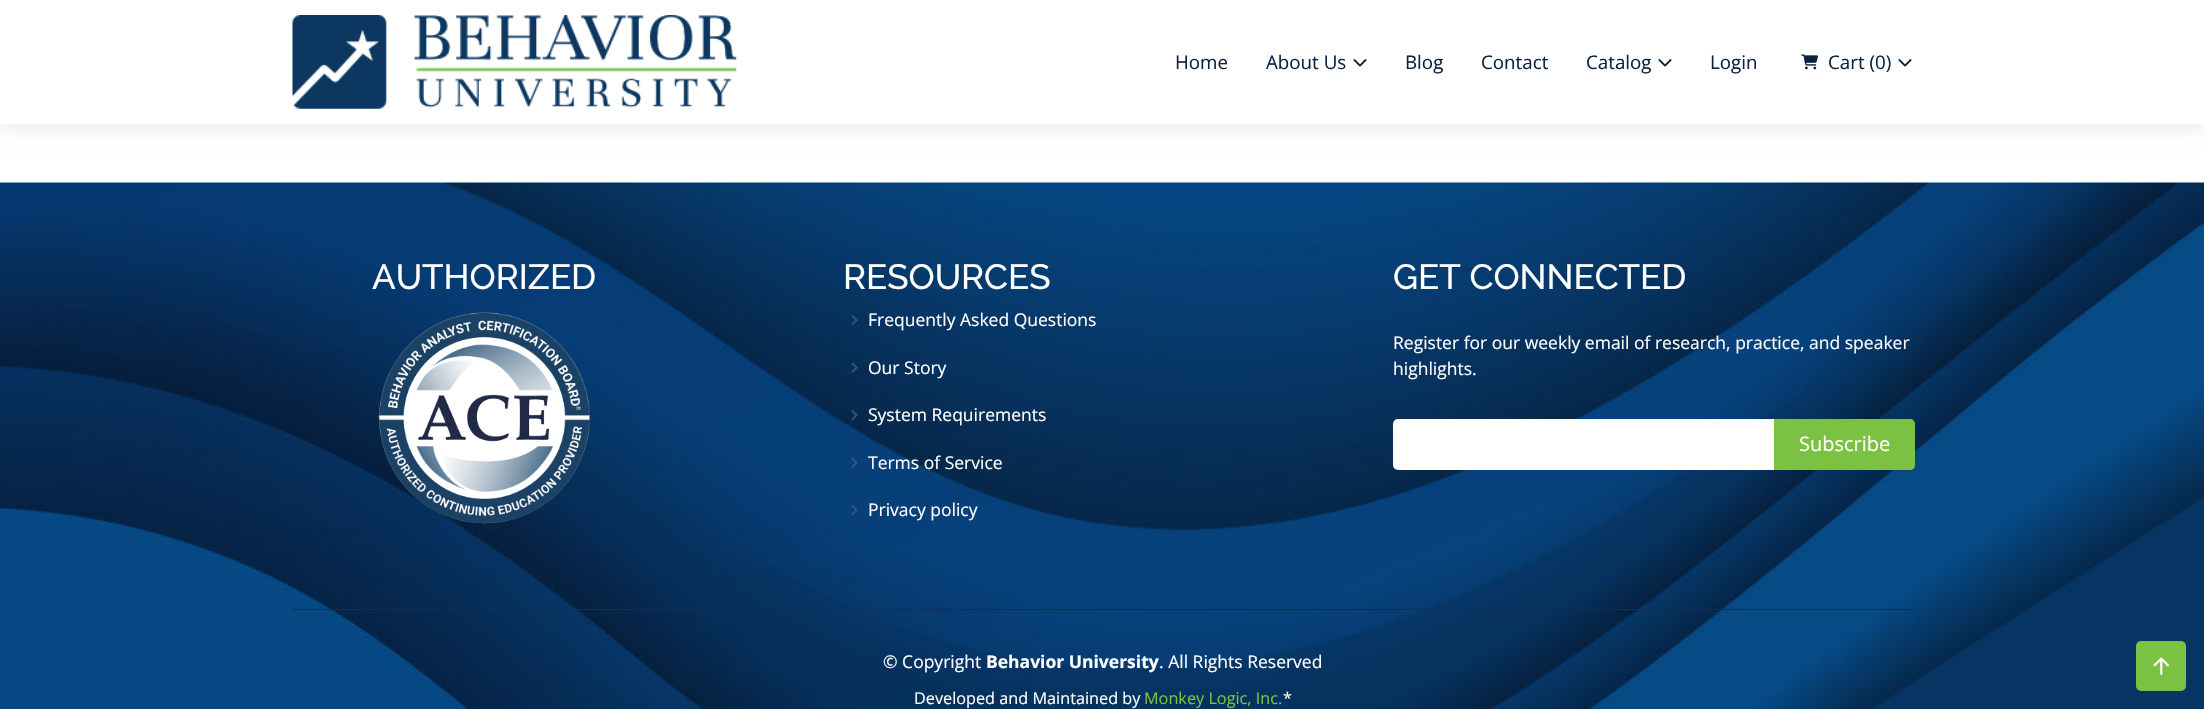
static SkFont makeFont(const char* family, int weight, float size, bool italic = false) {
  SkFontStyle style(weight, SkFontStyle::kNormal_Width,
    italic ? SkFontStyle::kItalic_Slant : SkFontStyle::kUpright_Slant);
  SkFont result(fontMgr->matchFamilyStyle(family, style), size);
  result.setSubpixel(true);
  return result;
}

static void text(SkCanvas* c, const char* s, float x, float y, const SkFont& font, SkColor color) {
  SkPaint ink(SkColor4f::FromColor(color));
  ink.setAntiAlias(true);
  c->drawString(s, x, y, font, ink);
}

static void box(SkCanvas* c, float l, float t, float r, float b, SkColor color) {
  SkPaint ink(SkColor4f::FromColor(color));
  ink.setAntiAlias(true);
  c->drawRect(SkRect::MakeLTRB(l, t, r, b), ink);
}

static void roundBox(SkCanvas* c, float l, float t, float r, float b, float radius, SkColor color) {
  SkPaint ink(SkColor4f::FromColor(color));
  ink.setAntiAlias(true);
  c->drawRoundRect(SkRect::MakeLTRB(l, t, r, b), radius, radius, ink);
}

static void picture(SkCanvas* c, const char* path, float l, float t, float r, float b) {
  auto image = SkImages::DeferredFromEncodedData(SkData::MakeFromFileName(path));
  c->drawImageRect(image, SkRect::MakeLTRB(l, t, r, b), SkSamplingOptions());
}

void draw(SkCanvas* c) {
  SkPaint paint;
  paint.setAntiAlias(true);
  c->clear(0xffffffff);
  paint.setColor(0x1a000000);
  paint.setMaskFilter(SkMaskFilter::MakeBlur(kNormal_SkBlurStyle, 9.5f));
  c->drawRect(SkRect::MakeLTRB(0, 3, 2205, 126), paint);
  paint.setMaskFilter(nullptr);
  box(c, 0, 0, 2204, 124, 0xffffffff);
  picture(c, "img_01.png", 292, 15, 737, 109);
  SkFont face1 = makeFont("Open Sans", 400, 18.75f);
  text(c, "Home", 1175, 69, face1, 0xff0b2341);
  text(c, "About Us", 1266, 69, face1, 0xff0b2341);
  picture(c, "img_02.png", 1353, 59, 1367, 67);
  text(c, "Blog", 1405, 69, face1, 0xff0b2341);
  text(c, "Contact", 1481, 69, face1, 0xff0b2341);
  text(c, "Catalog", 1586, 69, face1, 0xff0b2341);
  picture(c, "img_02.png", 1658, 59, 1672, 67);
  text(c, "Login", 1710, 69, face1, 0xff0b2341);
  picture(c, "img_03.png", 1801, 54, 1818, 70);
  text(c, "Cart (0)", 1828, 69, face1, 0xff0b2341);
  picture(c, "img_02.png", 1898, 59, 1912, 67);
  picture(c, "img_04.png", 0, 182, 2204, 709);
  SkFont face2 = makeFont("Raleway", 500, 35);
  text(c, "AUTHORIZED", 372, 289, face2, 0xffffffff);
  picture(c, "img_05.png", 378, 312, 590, 524);
  text(c, "RESOURCES", 843, 289, face2, 0xffffffff);
  picture(c, "img_06.png", 851, 315, 858, 326);
  SkFont face3 = makeFont("Open Sans", 400, 17.5f);
  text(c, "Frequently Asked Questions", 868, 326, face3, 0xffffffff);
  picture(c, "img_07.png", 851, 362, 858, 373);
  text(c, "Our Story", 868, 374, face3, 0xffffffff);
  picture(c, "img_08.png", 851, 410, 858, 421);
  text(c, "System Requirements", 868, 421, face3, 0xffffffff);
  picture(c, "img_09.png", 851, 457, 858, 468);
  text(c, "Terms of Service", 868, 469, face3, 0xffffffff);
  picture(c, "img_10.png", 851, 505, 858, 516);
  text(c, "Privacy policy", 868, 516, face3, 0xffffffff);
  text(c, "GET CONNECTED", 1393, 289, face2, 0xffffffff);
  text(c, "Register for our weekly email of research, practice, and speaker", 1393, 349, face3, 0xffffffff);
  text(c, "highlights.", 1393, 375, face3, 0xffffffff);
  roundBox(c, 1393, 419, 1913, 470, 5, 0xffffffff);
  paint.setColor(0xff7cc242);
  c->drawPath(SkPathBuilder().moveTo(1774, 419).lineTo(1910, 419).cubicTo(1913, 419, 1915, 421, 1915, 424).lineTo(1915, 465).cubicTo(1915, 468, 1913, 470, 1910, 470).lineTo(1774, 470).close().detach(), paint);
  SkFont face4 = makeFont("Open Sans", 400, 20);
  text(c, "Subscribe", 1799, 451, face4, 0xffffffff);
  box(c, 293, 609, 1913, 610, 0xff0f2f57);
  text(c, "© Copyright", 883, 668, face3, 0xffffffff);
  SkFont face5 = makeFont("Open Sans", 700, 17.5f);
  text(c, "Behavior University", 986, 668, face5, 0xffffffff);
  text(c, ". All Rights Reserved", 1159, 668, face3, 0xffffffff);
  SkFont face6 = makeFont("Open Sans", 400, 16.25f);
  text(c, "Developed and Maintained by", 914, 704, face6, 0xffffffff);
  text(c, "Monkey Logic, Inc.", 1144, 704, face6, 0xff7cc242);
  text(c, "*", 1283, 704, face6, 0xffffffff);
  roundBox(c, 2136, 641, 2186, 691, 5, 0xff7cc242);
  picture(c, "img_11.png", 2153, 657, 2169, 675);
}
